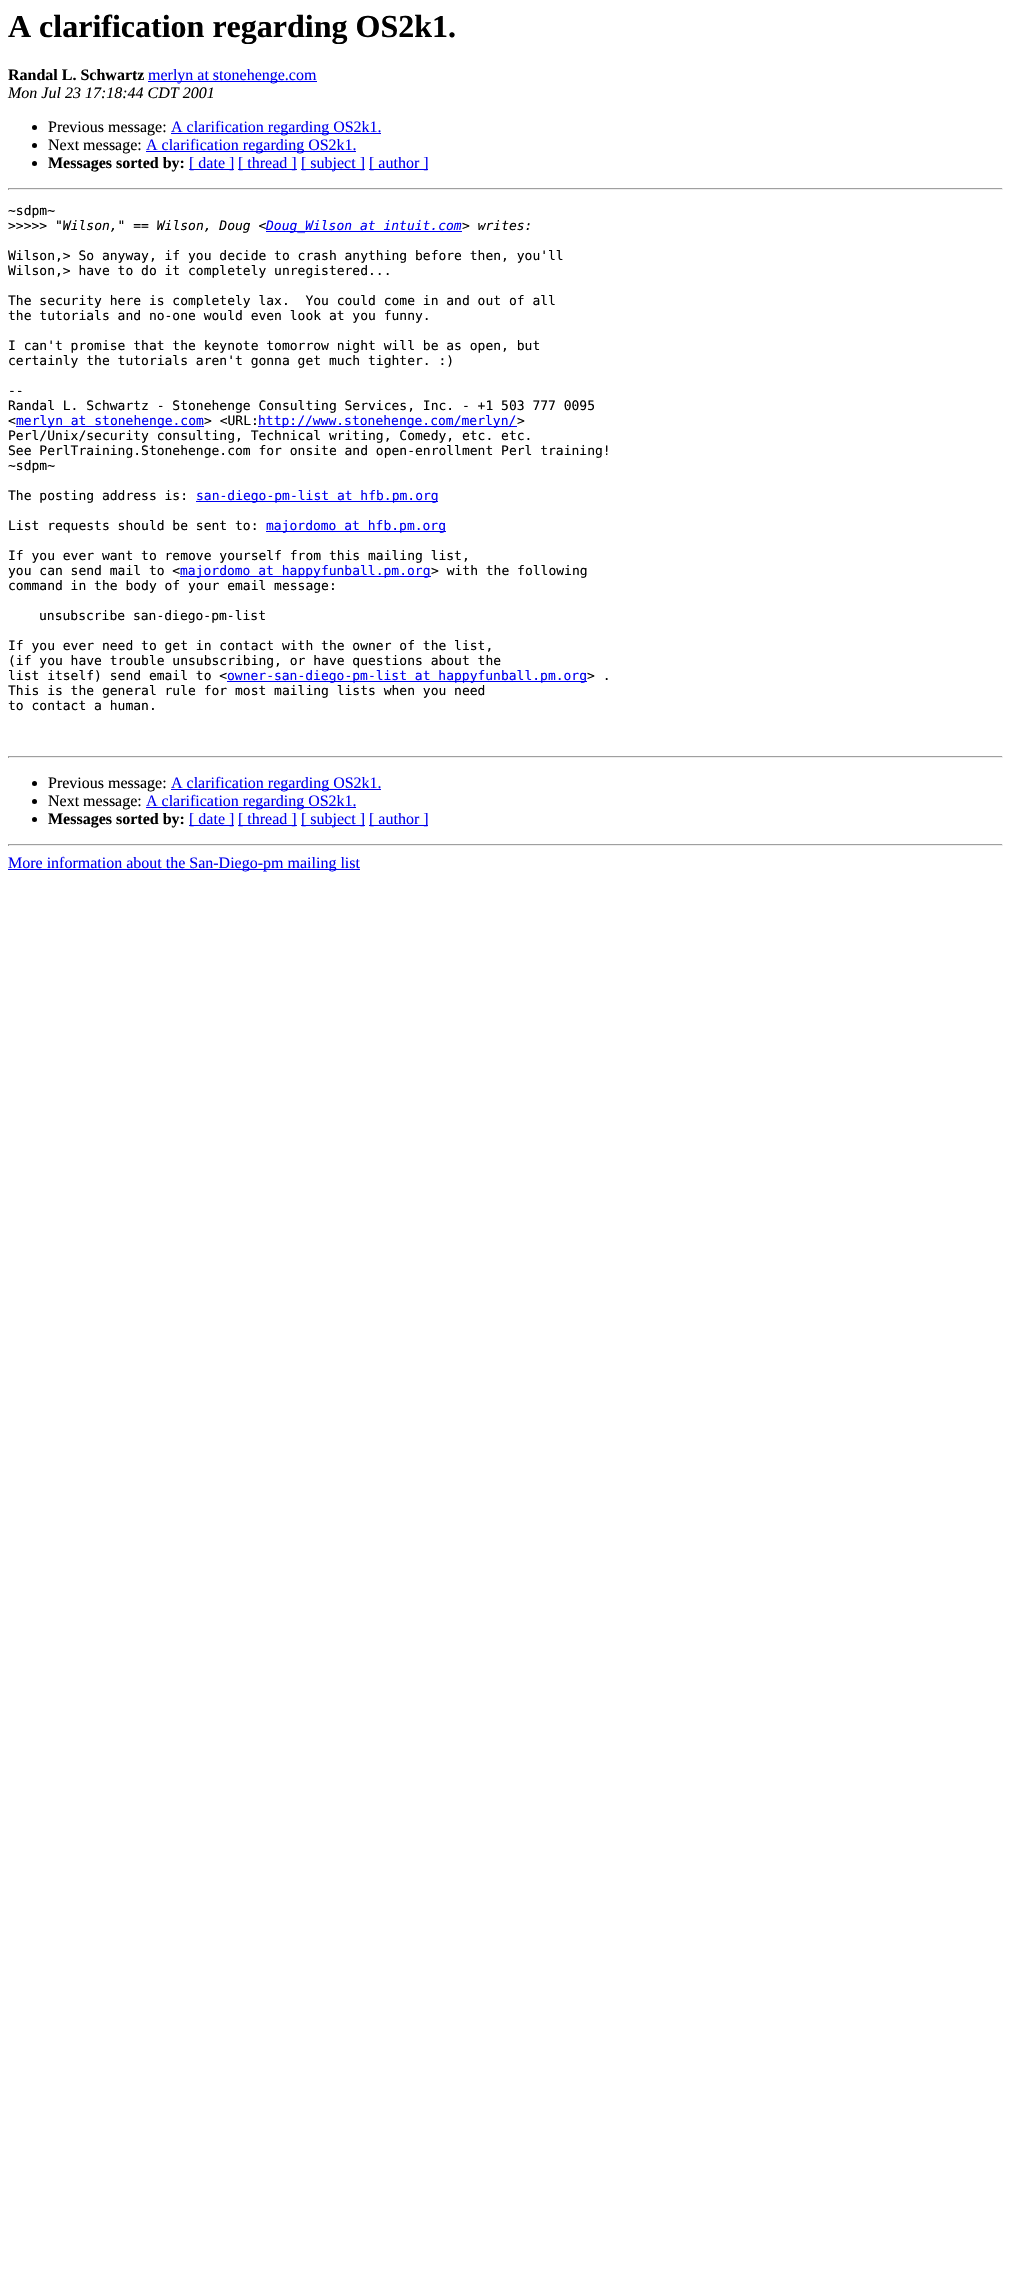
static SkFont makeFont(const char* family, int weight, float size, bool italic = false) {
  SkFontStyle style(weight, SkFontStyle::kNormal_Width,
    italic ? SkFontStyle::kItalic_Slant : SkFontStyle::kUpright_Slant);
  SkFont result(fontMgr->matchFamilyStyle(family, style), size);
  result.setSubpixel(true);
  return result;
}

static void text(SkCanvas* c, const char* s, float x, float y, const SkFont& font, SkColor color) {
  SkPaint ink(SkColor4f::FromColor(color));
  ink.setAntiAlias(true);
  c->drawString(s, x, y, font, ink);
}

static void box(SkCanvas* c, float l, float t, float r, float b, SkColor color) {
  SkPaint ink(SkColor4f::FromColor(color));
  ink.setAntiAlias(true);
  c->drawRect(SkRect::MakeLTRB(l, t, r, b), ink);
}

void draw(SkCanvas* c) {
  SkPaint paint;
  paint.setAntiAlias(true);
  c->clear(0xffffffff);
  SkFont face1 = makeFont("Liberation Serif", 700, 32);
  text(c, "A clarification regarding OS2k1.", 8, 37, face1, 0xff000000);
  SkFont face2 = makeFont("Liberation Serif", 700, 16);
  text(c, "Randal L. Schwartz", 8, 80, face2, 0xff000000);
  box(c, 148, 81, 317, 82, 0xff0000ee);
  SkFont face3 = makeFont("Liberation Serif", 400, 16);
  text(c, "merlyn at stonehenge.com", 148, 80, face3, 0xff0000ee);
  SkFont face4 = makeFont("Liberation Serif", 400, 16, true);
  text(c, "Mon Jul 23 17:18:44 CDT 2001", 8, 98, face4, 0xff000000);
  paint.setColor(0xff000000);
  c->drawCircle(34.5f, 127.5f, 2.5f, paint);
  text(c, "Previous message:", 48, 132, face3, 0xff000000);
  box(c, 171, 133, 381, 134, 0xff0000ee);
  text(c, "A clarification regarding OS2k1.", 171, 132, face3, 0xff0000ee);
  c->drawCircle(34.5f, 145.5f, 2.5f, paint);
  text(c, "Next message:", 48, 150, face3, 0xff000000);
  box(c, 146, 151, 356, 152, 0xff0000ee);
  text(c, "A clarification regarding OS2k1.", 146, 150, face3, 0xff0000ee);
  c->drawCircle(34.5f, 163.5f, 2.5f, paint);
  text(c, "Messages sorted by:", 48, 168, face2, 0xff000000);
  box(c, 189, 169, 234, 170, 0xff0000ee);
  text(c, "[ date ]", 189, 168, face3, 0xff0000ee);
  box(c, 238, 169, 297, 170, 0xff0000ee);
  text(c, "[ thread ]", 238, 168, face3, 0xff0000ee);
  box(c, 301, 169, 365, 170, 0xff0000ee);
  text(c, "[ subject ]", 301, 168, face3, 0xff0000ee);
  box(c, 369, 169, 428, 170, 0xff0000ee);
  text(c, "[ author ]", 369, 168, face3, 0xff0000ee);
  box(c, 8, 188, 1003, 189, 0xff9f9f9f);
  box(c, 1002, 188, 1003, 190, 0xffeeeeee);
  box(c, 8, 189, 1003, 190, 0xffeeeeee);
  box(c, 8, 188, 9, 190, 0xff9f9f9f);
  SkFont face5 = makeFont("DejaVu Sans Mono", 400, 13);
  text(c, "~sdpm~", 8, 215, face5, 0xff000000);
  text(c, ">>>>>", 8, 230, face5, 0xff000000);
  SkFont face6 = makeFont("DejaVu Sans Mono", 400, 13, true);
  text(c, "\"Wilson,\" == Wilson, Doug <", 55, 230, face6, 0xff000000);
  box(c, 266, 231, 462, 232, 0xff0000ee);
  text(c, "Doug_Wilson at intuit.com", 266, 230, face6, 0xff0000ee);
  text(c, "> writes:", 462, 230, face6, 0xff000000);
  text(c, "Wilson,> So anyway, if you decide to crash anything before then, you'll", 8, 260, face5, 0xff000000);
  text(c, "Wilson,> have to do it completely unregistered...", 8, 275, face5, 0xff000000);
  text(c, "The security here is completely lax.  You could come in and out of all", 8, 305, face5, 0xff000000);
  text(c, "the tutorials and no-one would even look at you funny.", 8, 320, face5, 0xff000000);
  text(c, "I can't promise that the keynote tomorrow night will be as open, but", 8, 350, face5, 0xff000000);
  text(c, "certainly the tutorials aren't gonna get much tighter. :)", 8, 365, face5, 0xff000000);
  text(c, "--", 8, 395, face5, 0xff000000);
  text(c, "Randal L. Schwartz - Stonehenge Consulting Services, Inc. - +1 503 777 0095", 8, 410, face5, 0xff000000);
  text(c, "<", 8, 425, face5, 0xff000000);
  box(c, 16, 426, 204, 427, 0xff0000ee);
  text(c, "merlyn at stonehenge.com", 16, 425, face5, 0xff0000ee);
  text(c, "> <URL:", 204, 425, face5, 0xff000000);
  box(c, 258, 426, 517, 427, 0xff0000ee);
  text(c, "http://www.stonehenge.com/merlyn/", 258, 425, face5, 0xff0000ee);
  text(c, ">", 517, 425, face5, 0xff000000);
  text(c, "Perl/Unix/security consulting, Technical writing, Comedy, etc. etc.", 8, 440, face5, 0xff000000);
  text(c, "See PerlTraining.Stonehenge.com for onsite and open-enrollment Perl training!", 8, 455, face5, 0xff000000);
  text(c, "~sdpm~", 8, 470, face5, 0xff000000);
  text(c, "The posting address is:", 8, 500, face5, 0xff000000);
  box(c, 196, 501, 438, 502, 0xff0000ee);
  text(c, "san-diego-pm-list at hfb.pm.org", 196, 500, face5, 0xff0000ee);
  text(c, "List requests should be sent to:", 8, 530, face5, 0xff000000);
  box(c, 266, 531, 446, 532, 0xff0000ee);
  text(c, "majordomo at hfb.pm.org", 266, 530, face5, 0xff0000ee);
  text(c, "If you ever want to remove yourself from this mailing list,", 8, 560, face5, 0xff000000);
  text(c, "you can send mail to <", 8, 575, face5, 0xff000000);
  box(c, 180, 576, 431, 577, 0xff0000ee);
  text(c, "majordomo at happyfunball.pm.org", 180, 575, face5, 0xff0000ee);
  text(c, "> with the following", 431, 575, face5, 0xff000000);
  text(c, "command in the body of your email message:", 8, 590, face5, 0xff000000);
  text(c, "unsubscribe san-diego-pm-list", 39, 620, face5, 0xff000000);
  text(c, "If you ever need to get in contact with the owner of the list,", 8, 650, face5, 0xff000000);
  text(c, "(if you have trouble unsubscribing, or have questions about the", 8, 665, face5, 0xff000000);
  text(c, "list itself) send email to <", 8, 680, face5, 0xff000000);
  box(c, 227, 681, 587, 682, 0xff0000ee);
  text(c, "owner-san-diego-pm-list at happyfunball.pm.org", 227, 680, face5, 0xff0000ee);
  text(c, "> .", 587, 680, face5, 0xff000000);
  text(c, "This is the general rule for most mailing lists when you need", 8, 695, face5, 0xff000000);
  text(c, "to contact a human.", 8, 710, face5, 0xff000000);
  box(c, 8, 756, 1003, 757, 0xff9f9f9f);
  box(c, 1002, 756, 1003, 758, 0xffeeeeee);
  box(c, 8, 757, 1003, 758, 0xffeeeeee);
  box(c, 8, 756, 9, 758, 0xff9f9f9f);
  c->drawCircle(34.5f, 783.5f, 2.5f, paint);
  text(c, "Previous message:", 48, 788, face3, 0xff000000);
  box(c, 171, 789, 381, 790, 0xff0000ee);
  text(c, "A clarification regarding OS2k1.", 171, 788, face3, 0xff0000ee);
  c->drawCircle(34.5f, 801.5f, 2.5f, paint);
  text(c, "Next message:", 48, 806, face3, 0xff000000);
  box(c, 146, 807, 356, 808, 0xff0000ee);
  text(c, "A clarification regarding OS2k1.", 146, 806, face3, 0xff0000ee);
  c->drawCircle(34.5f, 819.5f, 2.5f, paint);
  text(c, "Messages sorted by:", 48, 824, face2, 0xff000000);
  box(c, 189, 825, 234, 826, 0xff0000ee);
  text(c, "[ date ]", 189, 824, face3, 0xff0000ee);
  box(c, 238, 825, 297, 826, 0xff0000ee);
  text(c, "[ thread ]", 238, 824, face3, 0xff0000ee);
  box(c, 301, 825, 365, 826, 0xff0000ee);
  text(c, "[ subject ]", 301, 824, face3, 0xff0000ee);
  box(c, 369, 825, 428, 826, 0xff0000ee);
  text(c, "[ author ]", 369, 824, face3, 0xff0000ee);
  box(c, 8, 844, 1003, 845, 0xff9f9f9f);
  box(c, 1002, 844, 1003, 846, 0xffeeeeee);
  box(c, 8, 845, 1003, 846, 0xffeeeeee);
  box(c, 8, 844, 9, 846, 0xff9f9f9f);
  box(c, 8, 869, 360, 870, 0xff0000ee);
  text(c, "More information about the San-Diego-pm mailing list", 8, 868, face3, 0xff0000ee);
}
